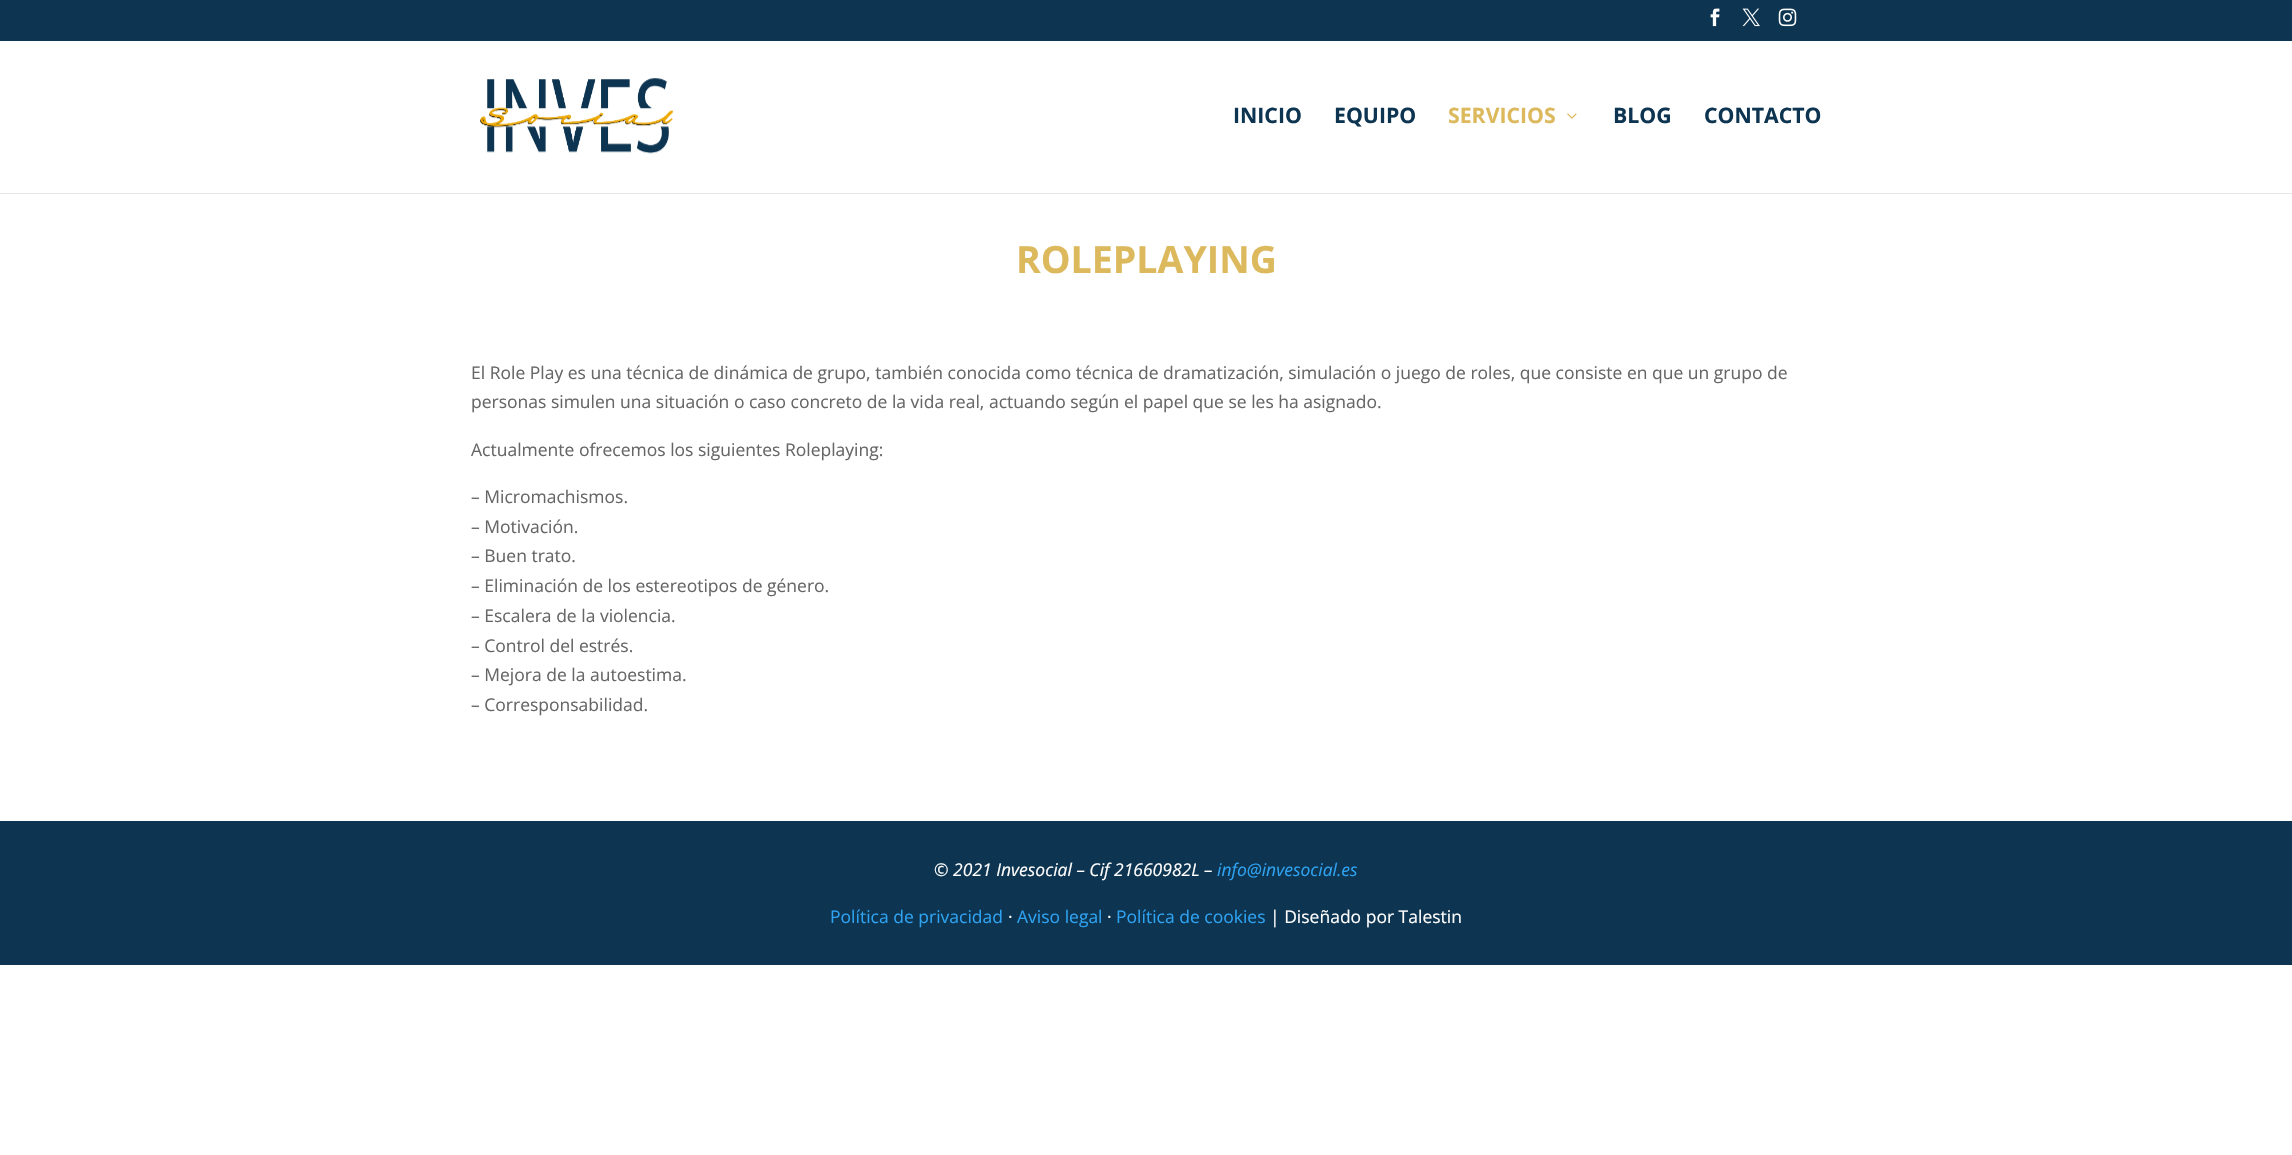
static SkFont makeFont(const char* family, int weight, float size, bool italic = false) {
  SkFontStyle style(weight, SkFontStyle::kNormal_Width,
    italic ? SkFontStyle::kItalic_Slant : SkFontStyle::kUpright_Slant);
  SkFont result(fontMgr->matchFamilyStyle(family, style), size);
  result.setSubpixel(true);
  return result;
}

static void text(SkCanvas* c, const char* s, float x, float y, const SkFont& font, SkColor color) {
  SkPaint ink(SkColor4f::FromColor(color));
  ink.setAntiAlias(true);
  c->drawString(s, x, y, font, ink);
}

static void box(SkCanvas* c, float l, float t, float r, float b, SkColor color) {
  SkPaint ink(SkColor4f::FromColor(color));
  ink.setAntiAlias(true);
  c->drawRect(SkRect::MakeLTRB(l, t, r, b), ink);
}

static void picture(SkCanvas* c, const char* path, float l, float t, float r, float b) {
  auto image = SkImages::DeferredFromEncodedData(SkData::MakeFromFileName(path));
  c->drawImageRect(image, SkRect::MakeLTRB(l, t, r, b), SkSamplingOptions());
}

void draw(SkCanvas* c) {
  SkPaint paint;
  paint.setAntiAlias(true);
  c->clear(0xffffffff);
  box(c, 0, 0, 2292, 41, 0xff0d3450);
  picture(c, "img_01.png", 1710, 8, 1720, 27);
  picture(c, "img_02.png", 1742, 8, 1760, 27);
  picture(c, "img_03.png", 1778, 8, 1797, 27);
  paint.setColor(0xffe6e6e6);
  c->drawPath(SkPathBuilder().moveTo(0, 192).lineTo(0, 194).lineTo(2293, 194).lineTo(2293, 39).lineTo(2292, 39).lineTo(2292, 192).close().detach(), paint);
  box(c, 0, 192, 2292, 193, 0xffffffff);
  picture(c, "img_04.png", 479, 78, 674, 154);
  SkFont face1 = makeFont("Open Sans", 700, 21.25f);
  text(c, "INICIO", 1233, 123, face1, 0xff0d3450);
  text(c, "EQUIPO", 1334, 123, face1, 0xff0d3450);
  text(c, "SERVICIOS", 1448, 123, face1, 0xffddb95e);
  picture(c, "img_05.png", 1567, 113, 1577, 119);
  text(c, "BLOG", 1613, 123, face1, 0xff0d3450);
  text(c, "CONTACTO", 1704, 123, face1, 0xff0d3450);
  SkFont face2 = makeFont("Open Sans", 700, 37.5f);
  text(c, "ROLEPLAYING", 1016, 273, face2, 0xffddb95e);
  SkFont face3 = makeFont("Open Sans", 400, 17.5f);
  text(c, "El Role Play es una técnica de dinámica de grupo, también conocida como técnica de dramatización, simulación o juego de roles, que consiste en que un grupo de", 471, 379, face3, 0xff666666);
  text(c, "personas simulen una situación o caso concreto de la vida real, actuando según el papel que se les ha asignado.", 471, 408, face3, 0xff666666);
  text(c, "Actualmente ofrecemos los siguientes Roleplaying:", 471, 456, face3, 0xff666666);
  text(c, "– Micromachismos.", 471, 503, face3, 0xff666666);
  text(c, "– Motivación.", 471, 533, face3, 0xff666666);
  text(c, "– Buen trato.", 471, 562, face3, 0xff666666);
  text(c, "– Eliminación de los estereotipos de género.", 471, 592, face3, 0xff666666);
  text(c, "– Escalera de la violencia.", 471, 622, face3, 0xff666666);
  text(c, "– Control del estrés.", 471, 652, face3, 0xff666666);
  text(c, "– Mejora de la autoestima.", 471, 681, face3, 0xff666666);
  text(c, "– Corresponsabilidad.", 471, 711, face3, 0xff666666);
  box(c, 0, 821, 2292, 965, 0xff0d3450);
  SkFont face4 = makeFont("Open Sans", 400, 17.5f, true);
  text(c, "© 2021 Invesocial – Cif 21660982L –", 934, 876, face4, 0xffffffff);
  text(c, "info@invesocial.es", 1217, 876, face4, 0xff2ea3f2);
  text(c, "Política de privacidad", 830, 923, face3, 0xff2ea3f2);
  text(c, "·", 1008, 923, face3, 0xffffffff);
  text(c, "Aviso legal", 1017, 923, face3, 0xff2ea3f2);
  text(c, "·", 1107, 923, face3, 0xffffffff);
  text(c, "Política de cookies", 1116, 923, face3, 0xff2ea3f2);
  text(c, "| Diseñado por Talestin", 1270, 923, face3, 0xffffffff);
}
